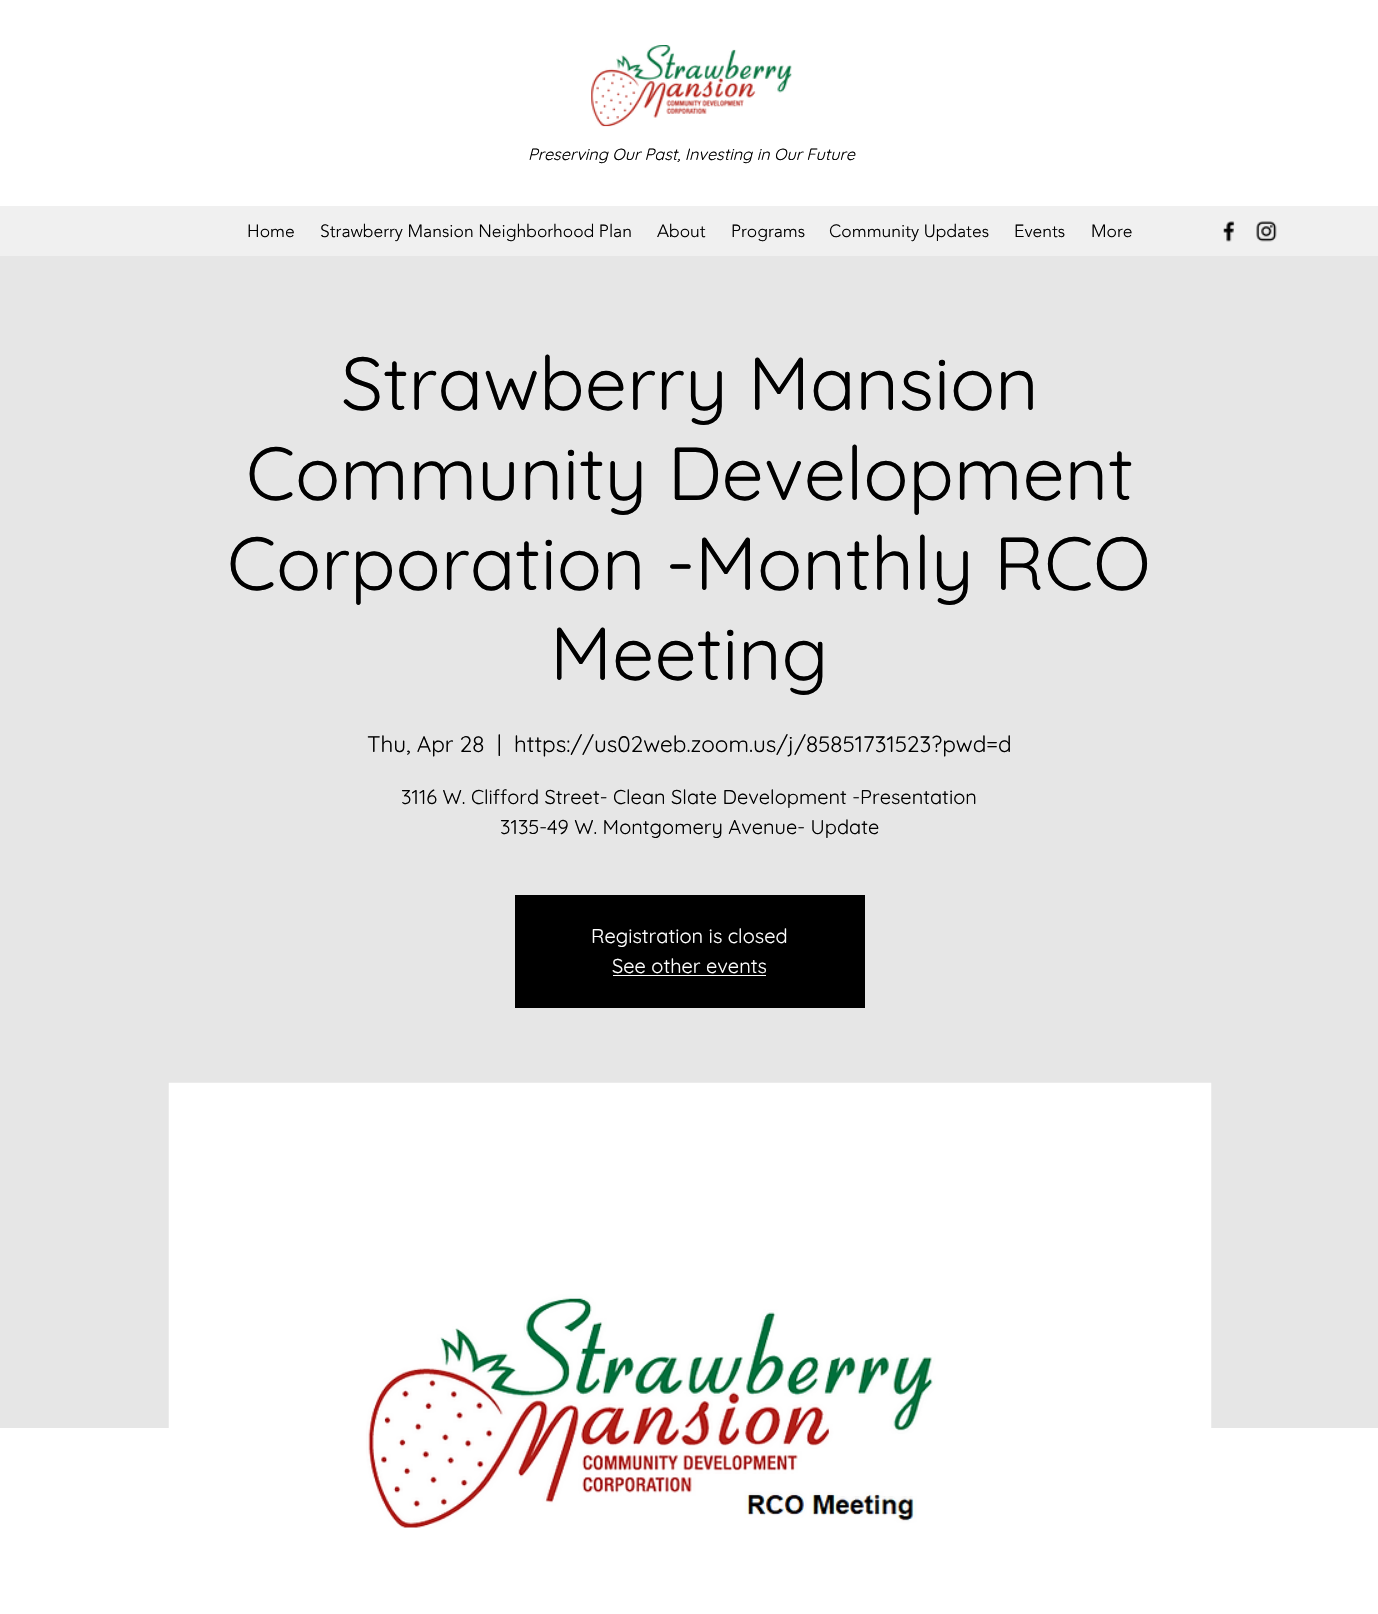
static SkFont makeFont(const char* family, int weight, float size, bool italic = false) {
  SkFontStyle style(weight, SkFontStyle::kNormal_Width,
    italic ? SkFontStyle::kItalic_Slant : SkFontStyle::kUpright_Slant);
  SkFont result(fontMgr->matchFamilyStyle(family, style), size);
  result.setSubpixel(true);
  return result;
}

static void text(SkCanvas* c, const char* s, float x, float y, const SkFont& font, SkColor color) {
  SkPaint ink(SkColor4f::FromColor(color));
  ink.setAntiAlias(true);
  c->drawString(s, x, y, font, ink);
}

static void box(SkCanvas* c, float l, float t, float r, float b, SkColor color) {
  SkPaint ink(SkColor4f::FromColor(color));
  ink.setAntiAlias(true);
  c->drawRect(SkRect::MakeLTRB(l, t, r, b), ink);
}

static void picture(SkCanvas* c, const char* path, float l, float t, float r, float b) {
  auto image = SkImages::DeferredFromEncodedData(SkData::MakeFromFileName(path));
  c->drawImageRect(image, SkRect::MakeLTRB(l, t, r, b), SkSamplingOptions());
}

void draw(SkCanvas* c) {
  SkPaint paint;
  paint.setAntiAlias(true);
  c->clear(0xffffffff);
  picture(c, "img_01.png", 591, 45, 792, 127);
  SkFont face1 = makeFont("Quicksand", 400, 16.25f, true);
  text(c, "Preserving Our Past, Investing in Our Future", 528, 160, face1, 0xff000000);
  box(c, 0, 206, 1378, 256, 0xfff0f0f0);
  SkFont face2 = makeFont("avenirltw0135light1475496", 300, 17.5f);
  text(c, "Home", 247, 237, face2, 0xff000000);
  text(c, "Strawberry Mansion Neighborhood Plan", 320, 237, face2, 0xff000000);
  text(c, "About", 657, 237, face2, 0xff000000);
  text(c, "Programs", 731, 237, face2, 0xff000000);
  text(c, "Community Updates", 829, 237, face2, 0xff000000);
  text(c, "Events", 1014, 237, face2, 0xff000000);
  text(c, "More", 1091, 237, face2, 0xff000000);
  picture(c, "img_02.png", 1223, 221, 1235, 242);
  picture(c, "img_03.png", 1256, 221, 1277, 242);
  box(c, 0, 256, 1378, 1428, 0xffe6e6e6);
  SkFont face3 = makeFont("Quicksand", 400, 75);
  text(c, "Strawberry Mansion", 341, 410, face3, 0xff000000);
  text(c, "Community Development", 246, 500, face3, 0xff000000);
  text(c, "Corporation -Monthly RCO", 227, 590, face3, 0xff000000);
  text(c, "Meeting", 550, 680, face3, 0xff000000);
  SkFont face4 = makeFont("Quicksand", 400, 22.5f);
  text(c, "Thu, Apr 28", 367, 752, face4, 0xff000000);
  text(c, "|", 497, 752, face4, 0xff000000);
  text(c, "https://us02web.zoom.us/j/85851731523?pwd=d", 514, 752, face4, 0xff000000);
  SkFont face5 = makeFont("Quicksand", 400, 20);
  text(c, "3116 W. Clifford Street- Clean Slate Development -Presentation", 401, 804, face5, 0xff000000);
  text(c, "3135-49 W. Montgomery Avenue- Update", 500, 834, face5, 0xff000000);
  box(c, 515, 895, 865, 1008, 0xff000000);
  text(c, "Registration is closed", 591, 943, face5, 0xffffffff);
  text(c, "See other events", 612, 973, face5, 0xffffffff);
  box(c, 613, 975, 766, 976, 0xffffffff);
  picture(c, "img_04.png", 168, 1082, 1212, 1528);
}
